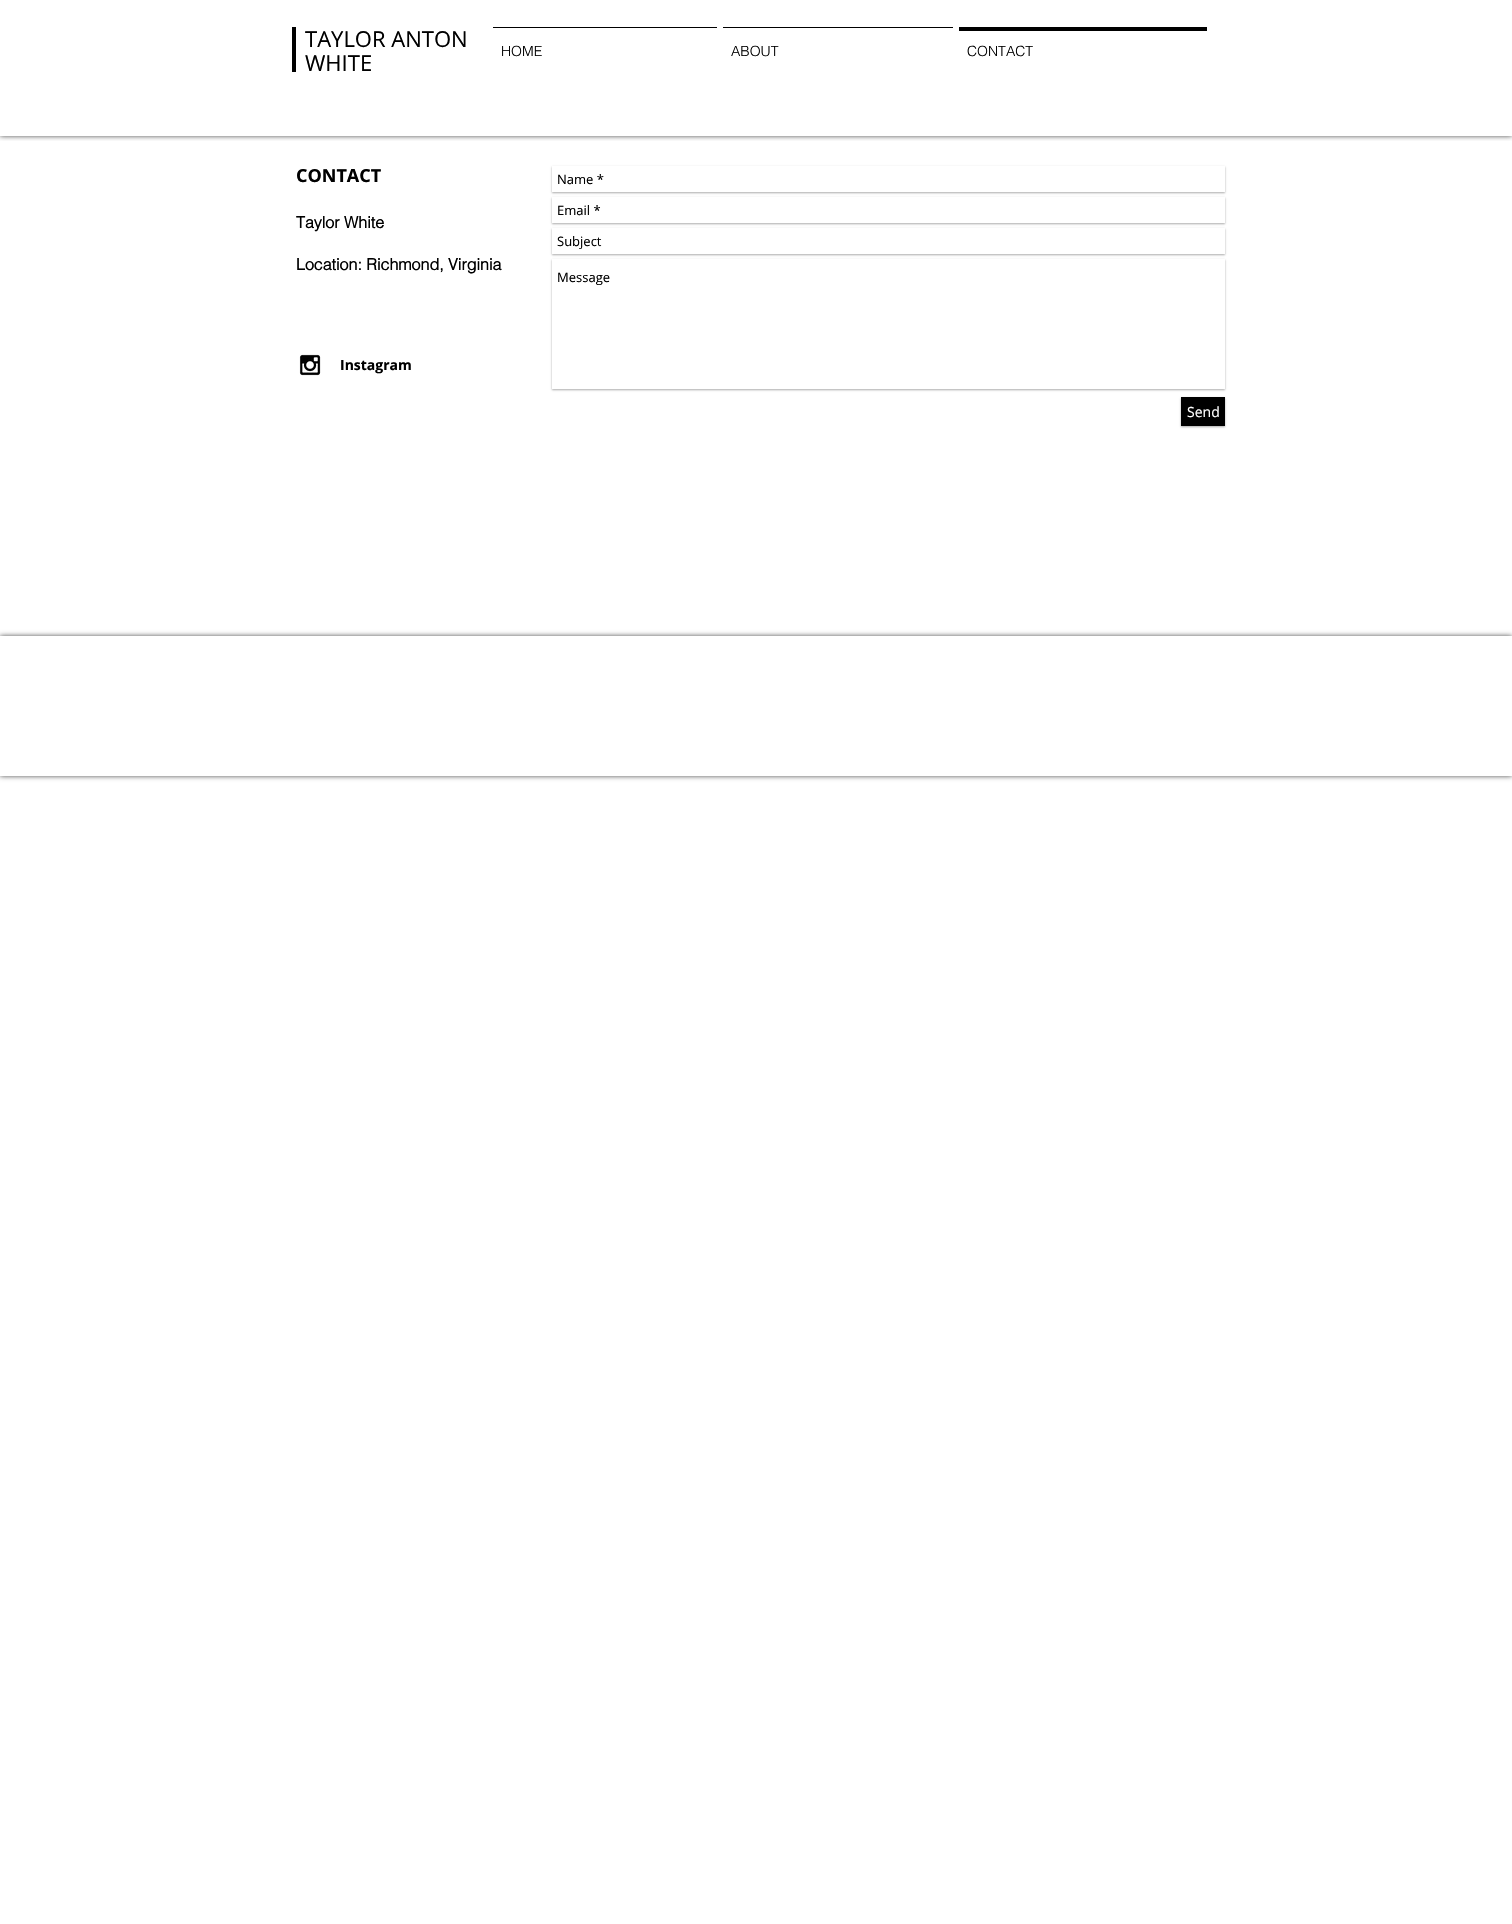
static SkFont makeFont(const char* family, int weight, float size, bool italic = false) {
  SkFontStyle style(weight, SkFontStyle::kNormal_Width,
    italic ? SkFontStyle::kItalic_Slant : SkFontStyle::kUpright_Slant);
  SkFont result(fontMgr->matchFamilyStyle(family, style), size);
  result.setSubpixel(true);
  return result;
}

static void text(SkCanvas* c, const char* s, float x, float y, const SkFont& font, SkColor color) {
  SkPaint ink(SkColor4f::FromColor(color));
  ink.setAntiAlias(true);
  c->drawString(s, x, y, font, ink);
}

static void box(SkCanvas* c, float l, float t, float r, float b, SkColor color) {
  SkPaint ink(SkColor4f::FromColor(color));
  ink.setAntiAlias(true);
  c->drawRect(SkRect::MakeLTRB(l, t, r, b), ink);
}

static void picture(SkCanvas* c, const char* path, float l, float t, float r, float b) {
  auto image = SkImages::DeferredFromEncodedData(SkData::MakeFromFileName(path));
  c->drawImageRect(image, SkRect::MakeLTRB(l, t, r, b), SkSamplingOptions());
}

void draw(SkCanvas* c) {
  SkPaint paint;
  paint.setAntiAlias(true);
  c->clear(0xffffffff);
  c->save();
  c->clipRect(SkRect::MakeLTRB(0, 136, 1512, 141));
  paint.setColor(0xb3000000);
  paint.setMaskFilter(SkMaskFilter::MakeBlur(kNormal_SkBlurStyle, 2.5f));
  c->drawRect(SkRect::MakeLTRB(0, 0, 1512, 136), paint);
  paint.setMaskFilter(nullptr);
  c->restore();
  box(c, 292, 27, 296, 72, 0xff000000);
  SkFont face1 = makeFont("Open Sans", 400, 22);
  text(c, "TAYLOR ANTON", 305, 47, face1, 0xff000000);
  text(c, "WHITE", 305, 71, face1, 0xff000000);
  box(c, 493, 27, 717, 28, 0xff000000);
  SkFont face2 = makeFont("helvetica", 300, 14);
  text(c, "HOME", 501, 56, face2, 0xff000000);
  box(c, 723, 27, 953, 28, 0xff000000);
  text(c, "ABOUT", 731, 56, face2, 0xff000000);
  box(c, 959, 27, 1207, 31, 0xff000000);
  text(c, "CONTACT", 967, 56, face2, 0xff000000);
  SkFont face3 = makeFont("Open Sans", 700, 18);
  text(c, "CONTACT", 296, 182, face3, 0xff000000);
  c->save();
  c->clipPath(SkPathBuilder(SkPathFillType::kEvenOdd).moveTo(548, 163).lineTo(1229, 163).lineTo(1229, 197).lineTo(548, 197).close().moveTo(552, 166).lineTo(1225, 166).lineTo(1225, 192).lineTo(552, 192).close().detach(), true);
  paint.setColor(0x54000000);
  paint.setMaskFilter(SkMaskFilter::MakeBlur(kNormal_SkBlurStyle, 1));
  c->drawRect(SkRect::MakeLTRB(552, 167, 1225, 193), paint);
  paint.setMaskFilter(nullptr);
  c->restore();
  SkFont face4 = makeFont("Open Sans", 400, 13);
  text(c, "Name *", 557, 184, face4, 0xff000000);
  c->save();
  c->clipPath(SkPathBuilder(SkPathFillType::kEvenOdd).moveTo(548, 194).lineTo(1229, 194).lineTo(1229, 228).lineTo(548, 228).close().moveTo(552, 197).lineTo(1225, 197).lineTo(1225, 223).lineTo(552, 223).close().detach(), true);
  paint.setMaskFilter(SkMaskFilter::MakeBlur(kNormal_SkBlurStyle, 1));
  c->drawRect(SkRect::MakeLTRB(552, 198, 1225, 224), paint);
  paint.setMaskFilter(nullptr);
  c->restore();
  text(c, "Email *", 557, 215, face4, 0xff000000);
  c->save();
  c->clipPath(SkPathBuilder(SkPathFillType::kEvenOdd).moveTo(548, 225).lineTo(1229, 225).lineTo(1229, 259).lineTo(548, 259).close().moveTo(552, 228).lineTo(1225, 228).lineTo(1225, 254).lineTo(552, 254).close().detach(), true);
  paint.setMaskFilter(SkMaskFilter::MakeBlur(kNormal_SkBlurStyle, 1));
  c->drawRect(SkRect::MakeLTRB(552, 229, 1225, 255), paint);
  paint.setMaskFilter(nullptr);
  c->restore();
  text(c, "Subject", 557, 246, face4, 0xff000000);
  c->save();
  c->clipPath(SkPathBuilder(SkPathFillType::kEvenOdd).moveTo(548, 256).lineTo(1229, 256).lineTo(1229, 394).lineTo(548, 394).close().moveTo(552, 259).lineTo(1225, 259).lineTo(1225, 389).lineTo(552, 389).close().detach(), true);
  paint.setMaskFilter(SkMaskFilter::MakeBlur(kNormal_SkBlurStyle, 1));
  c->drawRect(SkRect::MakeLTRB(552, 260, 1225, 390), paint);
  paint.setMaskFilter(nullptr);
  c->restore();
  text(c, "Message", 557, 282, face4, 0xff000000);
  paint.setMaskFilter(SkMaskFilter::MakeBlur(kNormal_SkBlurStyle, 1));
  c->drawRect(SkRect::MakeLTRB(1181, 398, 1225, 427), paint);
  paint.setMaskFilter(nullptr);
  box(c, 1181, 397, 1225, 426, 0xff000000);
  SkFont face5 = makeFont("Open Sans", 400, 14);
  text(c, "Send", 1187, 417, face5, 0xffffffff);
  SkFont face6 = makeFont("helvetica", 700, 16);
  text(c, "Taylor White", 296, 228, face6, 0xff000000);
  text(c, "Location: Richmond, Virginia", 296, 270, face6, 0xff000000);
  picture(c, "img_01.png", 299, 354, 321, 376);
  SkFont face7 = makeFont("Open Sans", 700, 14);
  text(c, "Instagram", 340, 370, face7, 0xff000000);
  c->save();
  c->clipPath(SkPathBuilder(SkPathFillType::kEvenOdd).moveTo(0, 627).lineTo(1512, 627).lineTo(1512, 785).lineTo(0, 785).close().moveTo(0, 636).lineTo(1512, 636).lineTo(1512, 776).lineTo(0, 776).close().detach(), true);
  paint.setColor(0xb3000000);
  paint.setMaskFilter(SkMaskFilter::MakeBlur(kNormal_SkBlurStyle, 2.5f));
  c->drawRect(SkRect::MakeLTRB(0, 636, 1512, 776), paint);
  paint.setMaskFilter(nullptr);
  c->restore();
}
